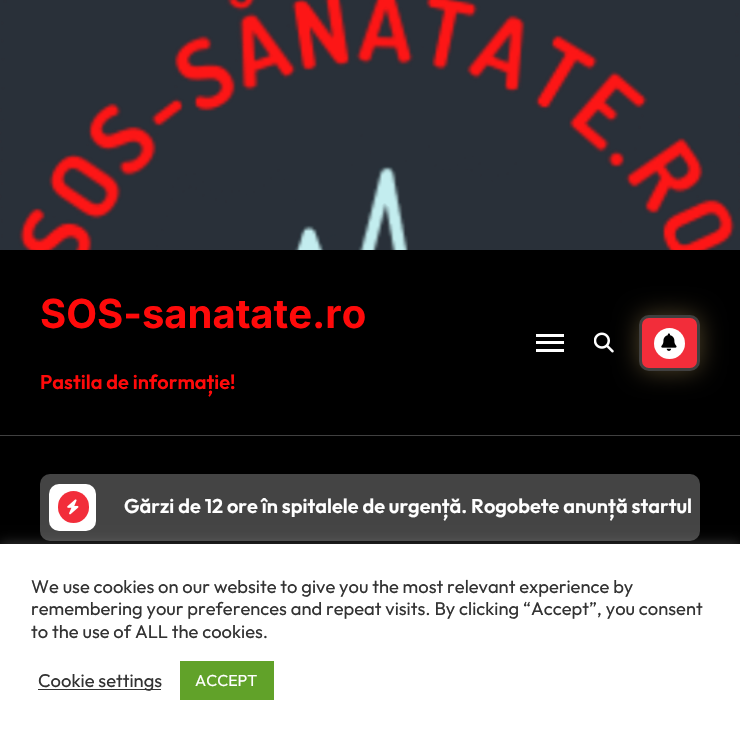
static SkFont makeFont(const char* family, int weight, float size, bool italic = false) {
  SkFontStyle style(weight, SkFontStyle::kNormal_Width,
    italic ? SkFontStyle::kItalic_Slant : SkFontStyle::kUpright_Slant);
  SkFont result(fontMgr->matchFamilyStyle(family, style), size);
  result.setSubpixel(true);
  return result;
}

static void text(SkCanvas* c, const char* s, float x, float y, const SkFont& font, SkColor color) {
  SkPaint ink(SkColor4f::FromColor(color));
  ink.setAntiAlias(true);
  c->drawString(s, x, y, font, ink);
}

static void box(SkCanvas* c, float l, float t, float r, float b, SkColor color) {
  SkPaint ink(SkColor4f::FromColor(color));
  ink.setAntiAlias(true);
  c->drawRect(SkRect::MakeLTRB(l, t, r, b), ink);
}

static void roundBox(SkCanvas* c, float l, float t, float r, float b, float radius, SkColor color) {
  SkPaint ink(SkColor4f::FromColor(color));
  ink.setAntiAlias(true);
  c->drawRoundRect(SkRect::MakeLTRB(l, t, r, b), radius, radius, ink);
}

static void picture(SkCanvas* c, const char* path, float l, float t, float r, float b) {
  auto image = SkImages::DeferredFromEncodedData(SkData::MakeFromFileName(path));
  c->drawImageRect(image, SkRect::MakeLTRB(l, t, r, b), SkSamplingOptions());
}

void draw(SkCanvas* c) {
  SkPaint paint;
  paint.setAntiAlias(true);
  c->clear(0xff000000);
  picture(c, "img_01.png", 0, 0, 740, 250);
  box(c, 0, 435, 740, 436, 0xff404040);
  SkFont face1 = makeFont("Inter", 700, 40);
  text(c, "SOS-sanatate.ro", 40, 328, face1, 0xffff0a0a);
  SkFont face2 = makeFont("Outfit", 600, 20);
  text(c, "Pastila de informație!", 40, 389, face2, 0xffff0a0a);
  box(c, 536, 334, 564, 337, 0xffffffff);
  box(c, 536, 341, 564, 344, 0xffffffff);
  box(c, 536, 349, 564, 352, 0xffffffff);
  picture(c, "img_03.png", 594, 332, 614, 353);
  paint.setColor(0x66c1a362);
  paint.setMaskFilter(SkMaskFilter::MakeBlur(kNormal_SkBlurStyle, 12.5f));
  c->drawRoundRect(SkRect::MakeLTRB(639, 315, 700, 371), 10, 10, paint);
  paint.setMaskFilter(nullptr);
  paint.setColor(0xfff22d3a);
  c->drawRoundRect(SkRect::MakeLTRB(640.5f, 316.5f, 698.5f, 369.5f), 8.5f, 8.5f, paint);
  paint.setStyle(SkPaint::kStroke_Style);
  paint.setStrokeWidth(3);
  paint.setColor(0xff404040);
  c->drawRoundRect(SkRect::MakeLTRB(640.5f, 316.5f, 698.5f, 369.5f), 8.5f, 8.5f, paint);
  paint.setStyle(SkPaint::kFill_Style);
  paint.setColor(0xffffffff);
  c->drawCircle(669.5f, 343.5f, 15.5f, paint);
  picture(c, "img_02.png", 661, 333, 677, 351);
  roundBox(c, 40, 474, 700, 541, 10, 0xff444444);
  roundBox(c, 49, 484, 96, 531, 10, 0xffffffff);
  roundBox(c, 58, 491, 89, 523, 15.5f, 0xfff22d3a);
  picture(c, "img_04.png", 67, 499, 79, 515);
  text(c, "Gărzi de 12 ore în spitalele de urgență. Rogobete anunță startul", 124, 513, face2, 0xffffffff);
  paint.setColor(0x4dacabab);
  paint.setMaskFilter(SkMaskFilter::MakeBlur(kNormal_SkBlurStyle, 6));
  c->drawRect(SkRect::MakeLTRB(0, 543, 740, 736), paint);
  paint.setMaskFilter(nullptr);
  box(c, 0, 544, 740, 737, 0xffffffff);
  SkFont face3 = makeFont("Outfit", 400, 18.35f);
  text(c, "We use cookies on our website to give you the most relevant experience by", 31, 593, face3, 0xff333333);
  text(c, "remembering your preferences and repeat visits. By clicking “Accept”, you consent", 31, 615, face3, 0xff333333);
  text(c, "to the use of ALL the cookies.", 31, 638, face3, 0xff333333);
  box(c, 38, 689, 161, 690, 0xff333333);
  text(c, "Cookie settings", 38, 687, face3, 0xff333333);
  box(c, 180, 661, 274, 700, 0xff61a229);
  SkFont face4 = makeFont("Outfit", 400, 16);
  text(c, "ACCEPT", 195, 686, face4, 0xffffffff);
}
